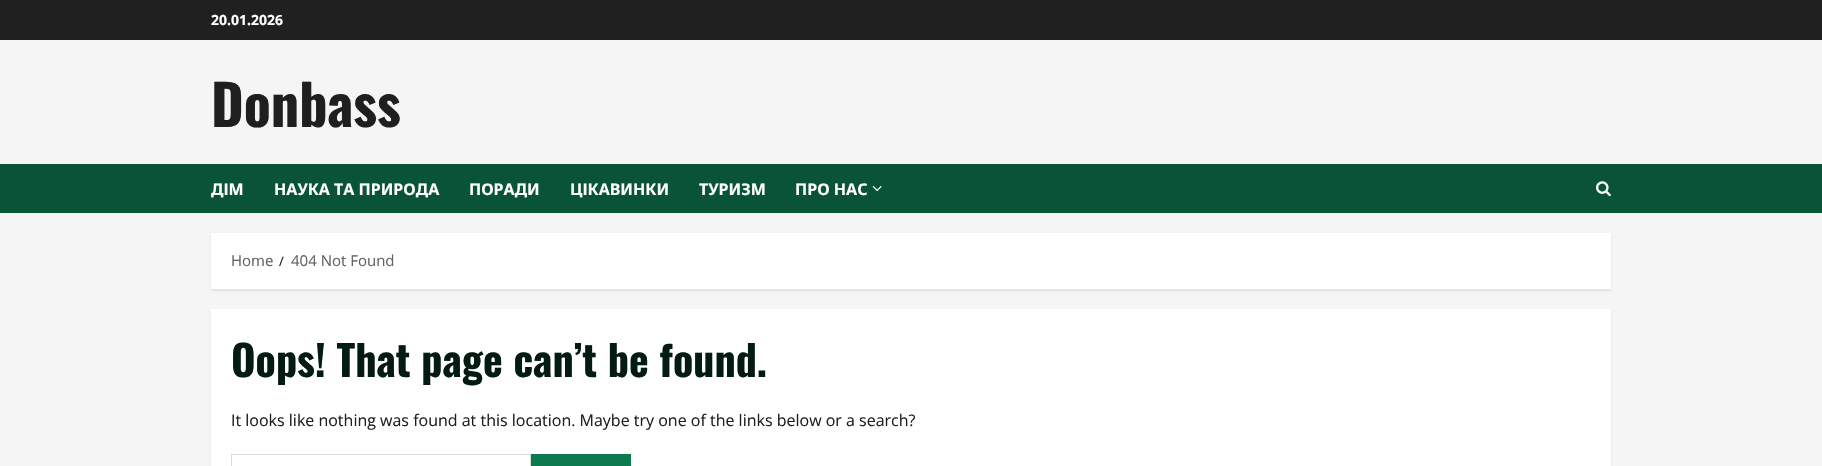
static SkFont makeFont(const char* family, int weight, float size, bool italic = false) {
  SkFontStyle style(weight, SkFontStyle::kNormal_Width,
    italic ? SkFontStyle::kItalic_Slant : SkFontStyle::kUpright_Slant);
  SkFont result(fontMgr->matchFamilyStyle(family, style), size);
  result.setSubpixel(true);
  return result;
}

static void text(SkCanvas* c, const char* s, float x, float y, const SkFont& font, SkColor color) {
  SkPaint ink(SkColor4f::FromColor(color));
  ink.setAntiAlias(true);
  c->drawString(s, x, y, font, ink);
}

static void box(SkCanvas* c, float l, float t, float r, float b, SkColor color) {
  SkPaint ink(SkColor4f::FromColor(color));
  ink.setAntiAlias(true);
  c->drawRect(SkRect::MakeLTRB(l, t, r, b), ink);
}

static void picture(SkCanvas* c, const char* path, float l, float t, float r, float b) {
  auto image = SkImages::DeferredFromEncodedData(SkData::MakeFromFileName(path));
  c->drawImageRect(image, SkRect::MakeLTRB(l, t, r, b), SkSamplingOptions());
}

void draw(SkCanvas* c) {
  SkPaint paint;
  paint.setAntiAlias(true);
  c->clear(0xfff5f5f5);
  box(c, 0, 0, 1822, 40, 0xff202020);
  SkFont face1 = makeFont("Open Sans", 700, 14);
  text(c, "20.01.2026", 211, 25, face1, 0xffffffff);
  SkFont face2 = makeFont("Oswald", 700, 56);
  text(c, "Donbass", 211, 127, face2, 0xff1f1f1f);
  box(c, 0, 164, 1822, 213, 0xff095437);
  SkFont face3 = makeFont("Noto Sans", 700, 16);
  text(c, "ДІМ", 211, 195, face3, 0xffffffff);
  text(c, "НАУКА ТА ПРИРОДА", 274, 195, face3, 0xffffffff);
  text(c, "ПОРАДИ", 469, 195, face3, 0xffffffff);
  text(c, "ЦІКАВИНКИ", 570, 195, face3, 0xffffffff);
  text(c, "ТУРИЗМ", 699, 195, face3, 0xffffffff);
  text(c, "ПРО НАС", 795, 195, face3, 0xffffffff);
  picture(c, "img_01.png", 872, 186, 882, 192);
  picture(c, "img_02.png", 1596, 181, 1611, 197);
  paint.setColor(0x14000000);
  paint.setMaskFilter(SkMaskFilter::MakeBlur(kNormal_SkBlurStyle, 1));
  c->drawRect(SkRect::MakeLTRB(211, 235, 1611, 291), paint);
  paint.setMaskFilter(nullptr);
  box(c, 211, 233, 1611, 289, 0xffffffff);
  SkFont face4 = makeFont("Open Sans", 400, 15);
  text(c, "Home", 231, 266, face4, 0xff626262);
  SkFont face5 = makeFont("Open Sans", 400, 13);
  text(c, "/", 279, 266, face5, 0xff1f1f1f);
  text(c, "404 Not Found", 291, 266, face4, 0xff626262);
  paint.setMaskFilter(SkMaskFilter::MakeBlur(kNormal_SkBlurStyle, 1));
  c->drawRect(SkRect::MakeLTRB(211, 311, 1611, 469), paint);
  paint.setMaskFilter(nullptr);
  box(c, 211, 309, 1611, 466, 0xffffffff);
  SkFont face6 = makeFont("Oswald", 700, 42);
  text(c, "Oops! That page can’t be found.", 231, 377, face6, 0xff031b11);
  SkFont face7 = makeFont("Open Sans", 400, 16);
  text(c, "It looks like nothing was found at this location. Maybe try one of the links below or a search?", 231, 426, face7, 0xff1f1f1f);
  paint.setStyle(SkPaint::kStroke_Style);
  paint.setStrokeWidth(1);
  paint.setColor(0xffdcdcdc);
  c->drawRect(SkRect::MakeLTRB(231.5f, 454.5f, 530.5f, 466.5f), paint);
  box(c, 531, 454, 631, 466, 0xff0c794f);
}
